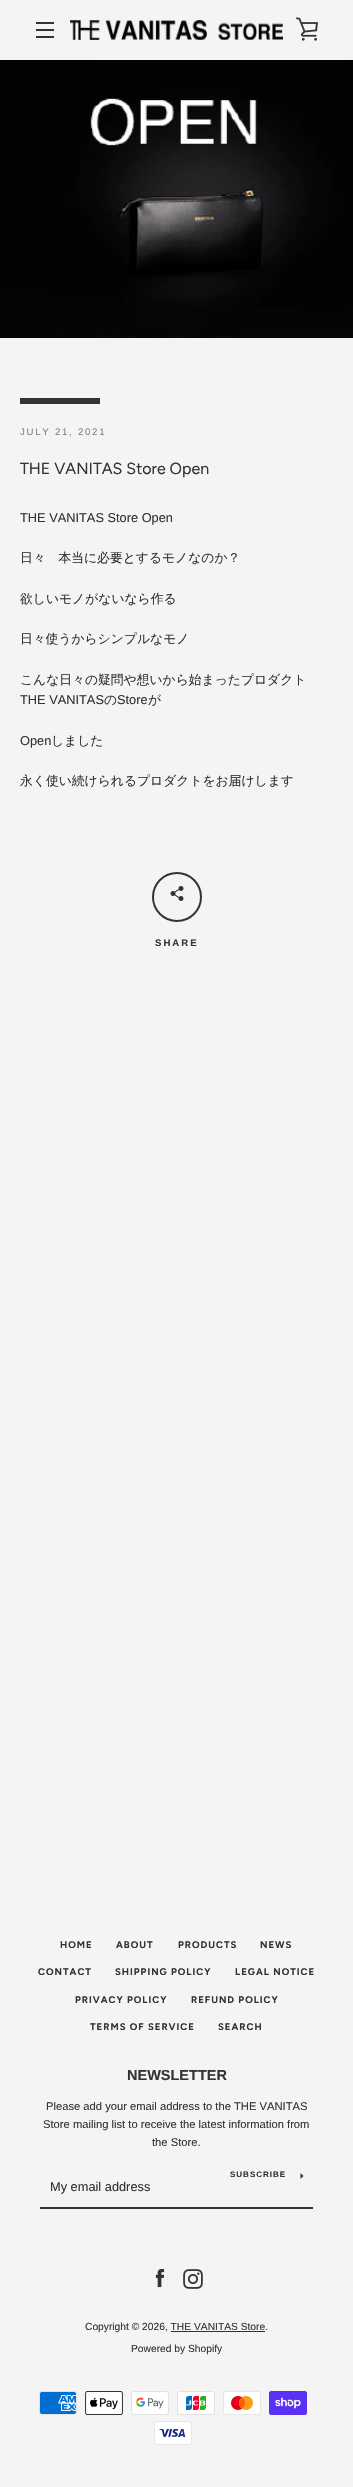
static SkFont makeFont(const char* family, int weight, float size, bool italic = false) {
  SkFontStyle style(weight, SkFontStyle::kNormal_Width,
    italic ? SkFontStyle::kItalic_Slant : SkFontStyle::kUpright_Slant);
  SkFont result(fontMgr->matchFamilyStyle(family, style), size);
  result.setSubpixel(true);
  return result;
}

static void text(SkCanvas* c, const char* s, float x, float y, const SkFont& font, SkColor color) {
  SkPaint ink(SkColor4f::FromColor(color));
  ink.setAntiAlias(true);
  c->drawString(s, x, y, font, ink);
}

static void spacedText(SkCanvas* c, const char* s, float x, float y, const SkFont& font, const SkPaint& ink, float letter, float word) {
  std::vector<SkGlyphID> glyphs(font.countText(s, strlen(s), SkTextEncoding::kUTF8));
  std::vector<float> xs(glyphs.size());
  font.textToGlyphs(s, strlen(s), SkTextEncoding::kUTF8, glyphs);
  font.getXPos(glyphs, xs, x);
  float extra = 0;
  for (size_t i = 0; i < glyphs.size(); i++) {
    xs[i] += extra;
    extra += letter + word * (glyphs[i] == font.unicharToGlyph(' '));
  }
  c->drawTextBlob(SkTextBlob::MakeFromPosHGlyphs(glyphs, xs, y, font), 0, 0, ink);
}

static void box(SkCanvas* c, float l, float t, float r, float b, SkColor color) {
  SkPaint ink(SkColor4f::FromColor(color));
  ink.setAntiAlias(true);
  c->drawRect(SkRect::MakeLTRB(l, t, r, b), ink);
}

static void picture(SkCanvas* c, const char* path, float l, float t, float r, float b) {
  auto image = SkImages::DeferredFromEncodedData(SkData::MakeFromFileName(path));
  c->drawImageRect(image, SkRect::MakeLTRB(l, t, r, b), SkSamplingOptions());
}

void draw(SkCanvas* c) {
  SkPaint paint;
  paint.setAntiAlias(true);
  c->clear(0xfff4f4f4);
  box(c, 36, 22, 54, 24, 0xff333333);
  box(c, 36, 29, 54, 31, 0xff333333);
  box(c, 36, 36, 54, 38, 0xff333333);
  picture(c, "img_01.png", 70, 20, 283, 40);
  picture(c, "img_02.png", 296, 17, 318, 41);
  picture(c, "img_03.png", 0, 60, 353, 338);
  box(c, 20, 398, 100, 404, 0xff333333);
  SkFont face1 = makeFont("Liberation Sans", 400, 9.6f);
  paint.setColor(0xff808080);
  spacedText(c, "JULY 21, 2021", 20, 435, face1, paint, 1.75f, 0);
  SkFont face2 = makeFont("Figtree", 400, 16);
  text(c, "THE VANITAS Store Open", 20, 474, face2, 0xff333333);
  SkFont face3 = makeFont("Liberation Sans", 400, 12.8f);
  text(c, "THE VANITAS Store Open", 20, 522, face3, 0xff333333);
  SkFont face4 = makeFont("WenQuanYi Zen Hei", 500, 12.8f);
  text(c, "日々　本当に必要とするモノなのか？", 20, 562, face4, 0xff333333);
  text(c, "欲しいモノがないなら作る", 20, 603, face4, 0xff333333);
  text(c, "日々使うからシンプルなモノ", 20, 643, face4, 0xff333333);
  text(c, "こんな日々の疑問や想いから始まったプロダクト", 20, 684, face4, 0xff333333);
  text(c, "THE VANITAS", 20, 704, face3, 0xff333333);
  text(c, "の", 104, 704, face4, 0xff333333);
  text(c, "Store", 117, 704, face3, 0xff333333);
  text(c, "が", 148, 704, face4, 0xff333333);
  text(c, "Open", 20, 745, face3, 0xff333333);
  text(c, "しました", 51, 745, face4, 0xff333333);
  text(c, "永く使い続けられるプロダクトをお届けします", 20, 785, face4, 0xff333333);
  paint.setStyle(SkPaint::kStroke_Style);
  paint.setStrokeWidth(2);
  paint.setColor(0xff333333);
  c->drawCircle(177, 897, 24, paint);
  picture(c, "img_04.png", 170, 886, 184, 901);
  SkFont face5 = makeFont("Liberation Sans", 700, 9.6f);
  paint.setStyle(SkPaint::kFill_Style);
  spacedText(c, "SHARE", 155, 946, face5, paint, 2, 0);
  SkFont face6 = makeFont("Figtree", 700, 9.6f);
  spacedText(c, "HOME", 60, 1948, face6, paint, 1, 0);
  spacedText(c, "ABOUT", 116, 1948, face6, paint, 1, 0);
  spacedText(c, "PRODUCTS", 178, 1948, face6, paint, 1, 0);
  spacedText(c, "NEWS", 260, 1948, face6, paint, 1, 0);
  spacedText(c, "CONTACT", 38, 1975, face6, paint, 1, 0);
  spacedText(c, "SHIPPING POLICY", 115, 1975, face6, paint, 1, 0);
  spacedText(c, "LEGAL NOTICE", 235, 1975, face6, paint, 1, 0);
  spacedText(c, "PRIVACY POLICY", 75, 2003, face6, paint, 1, 0);
  spacedText(c, "REFUND POLICY", 191, 2003, face6, paint, 1, 0);
  spacedText(c, "TERMS OF SERVICE", 90, 2030, face6, paint, 1, 0);
  spacedText(c, "SEARCH", 218, 2030, face6, paint, 1, 0);
  SkFont face7 = makeFont("Liberation Sans", 700, 14.5f);
  text(c, "NEWSLETTER", 127, 2080, face7, 0xff333333);
  SkFont face8 = makeFont("Liberation Sans", 400, 11.2f);
  text(c, "Please add your email address to the THE VANITAS", 46, 2110, face8, 0xff333333);
  text(c, "Store mailing list to receive the latest information from", 43, 2128, face8, 0xff333333);
  text(c, "the Store.", 152, 2146, face8, 0xff333333);
  box(c, 40, 2207, 313, 2209, 0xff333333);
  SkFont face9 = makeFont("Liberation Sans", 700, 8);
  spacedText(c, "SUBSCRIBE", 230, 2177, face9, paint, 1, 0);
  c->drawPath(SkPathBuilder().moveTo(303.5f, 2176).lineTo(300.5f, 2179).lineTo(300.5f, 2173).close().detach(), paint);
  text(c, "My email address", 50, 2191, face3, 0xff333333);
  picture(c, "img_05.png", 155, 2269, 165, 2288);
  picture(c, "img_06.png", 183, 2269, 203, 2289);
  SkFont face10 = makeFont("Liberation Sans", 400, 10.25f);
  text(c, "Copyright © 2026, THE VANITAS Store.", 85, 2330, face10, 0xff333333);
  box(c, 171, 2331, 265, 2332, 0xff333333);
  text(c, "Powered by Shopify", 131, 2352, face10, 0xff333333);
  picture(c, "img_07.png", 39, 2391, 77, 2415);
  picture(c, "img_08.png", 85, 2391, 123, 2415);
  picture(c, "img_09.png", 131, 2391, 169, 2415);
  picture(c, "img_10.png", 177, 2391, 215, 2415);
  picture(c, "img_11.png", 223, 2391, 261, 2415);
  picture(c, "img_12.png", 269, 2391, 307, 2415);
  picture(c, "img_13.png", 154, 2421, 192, 2445);
}
